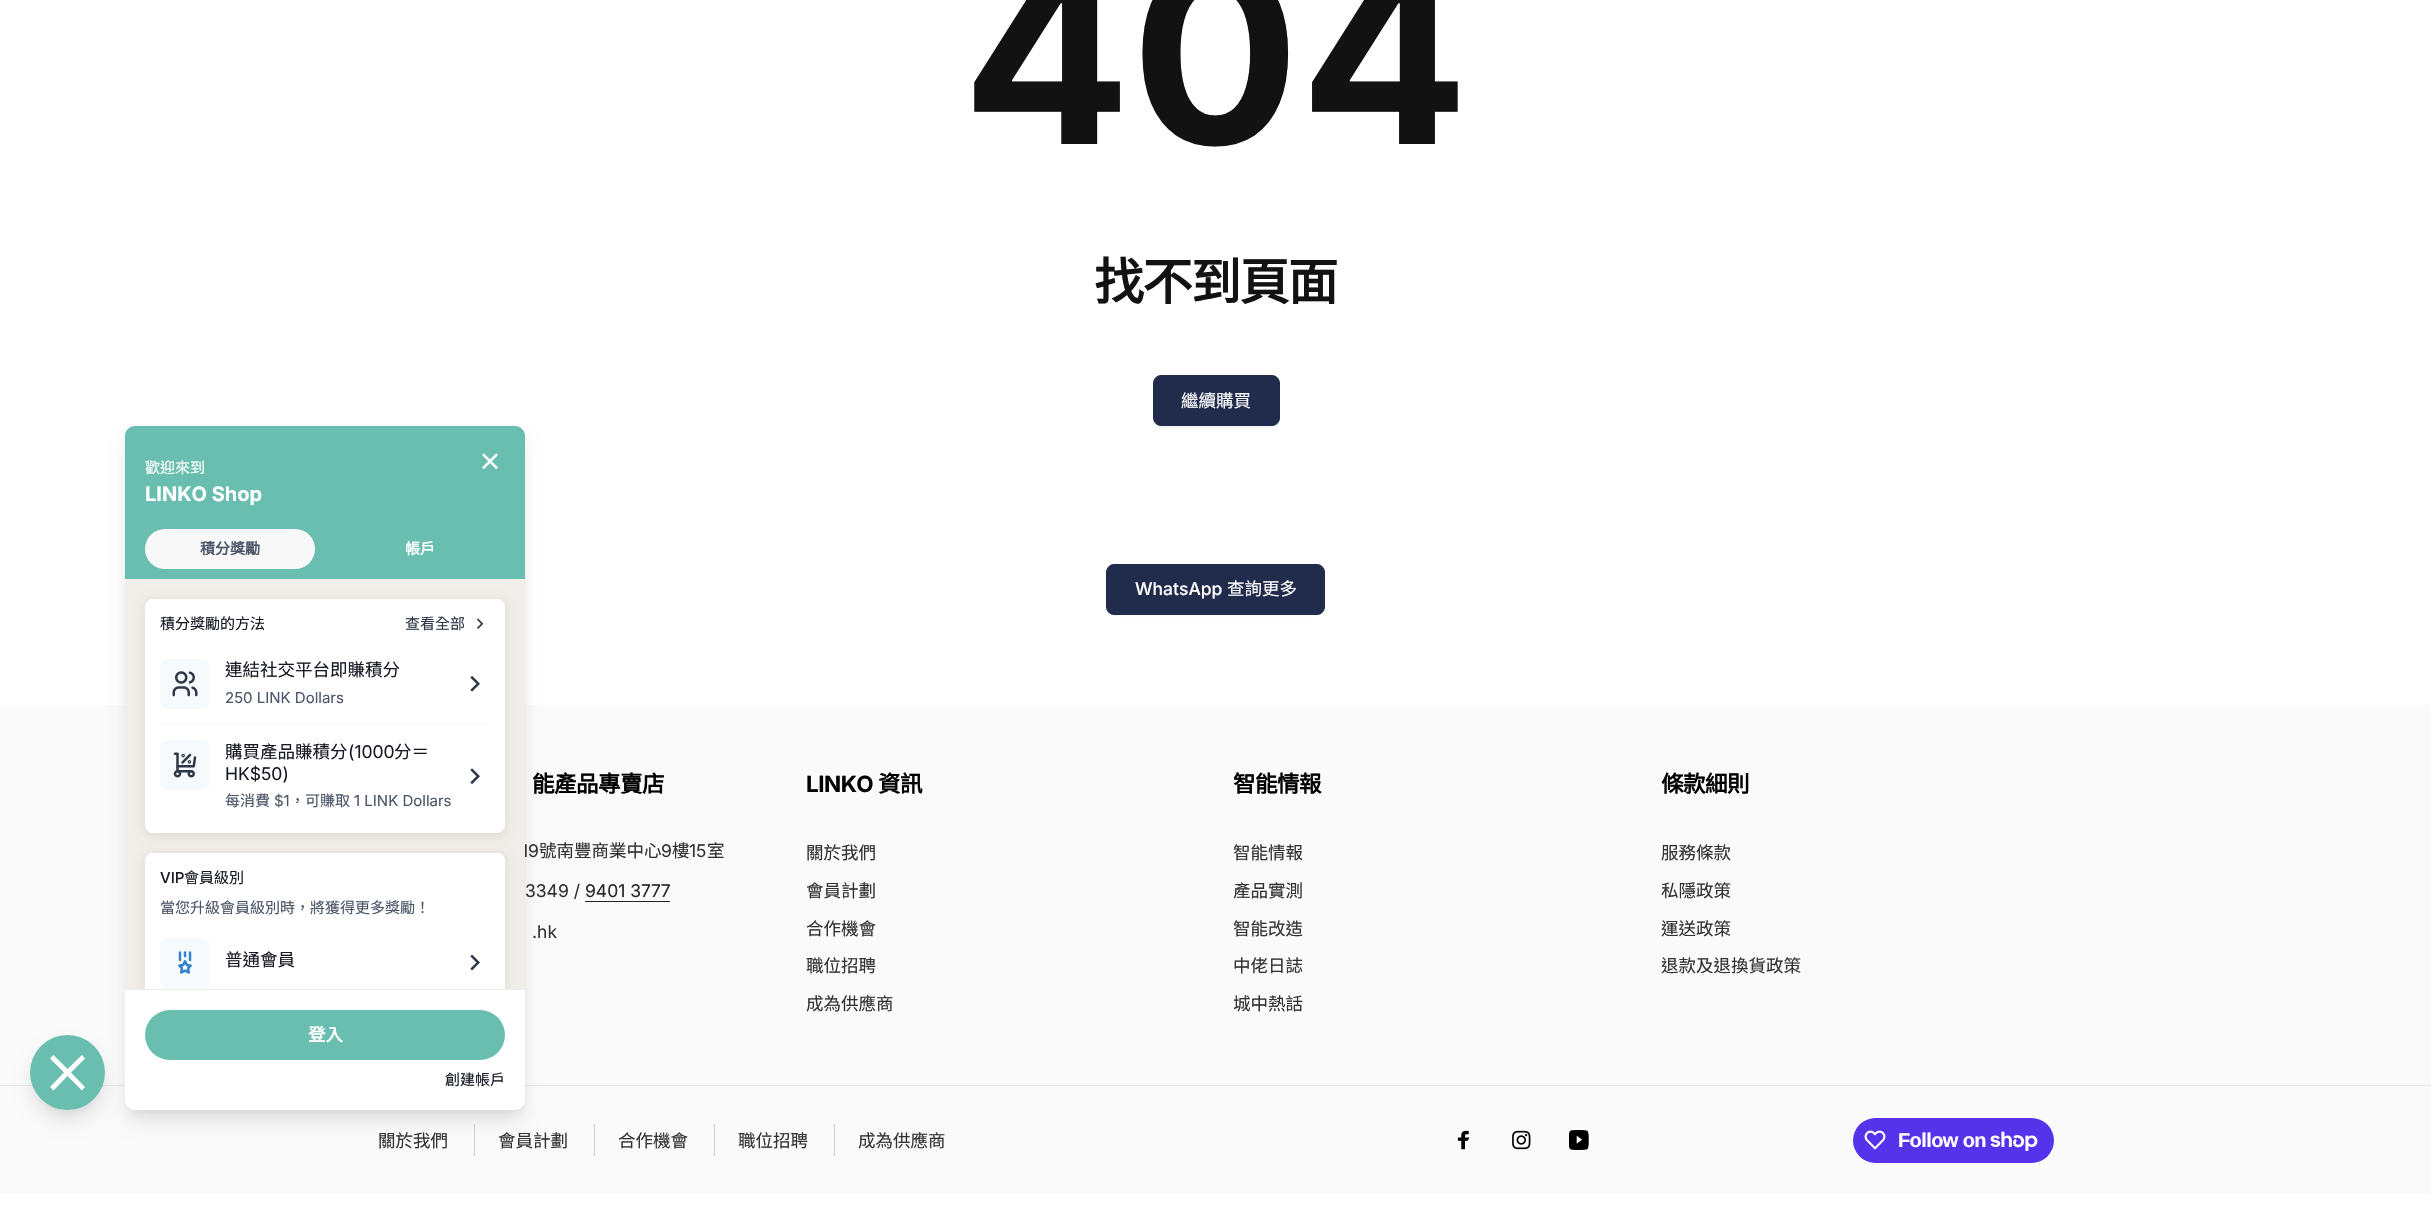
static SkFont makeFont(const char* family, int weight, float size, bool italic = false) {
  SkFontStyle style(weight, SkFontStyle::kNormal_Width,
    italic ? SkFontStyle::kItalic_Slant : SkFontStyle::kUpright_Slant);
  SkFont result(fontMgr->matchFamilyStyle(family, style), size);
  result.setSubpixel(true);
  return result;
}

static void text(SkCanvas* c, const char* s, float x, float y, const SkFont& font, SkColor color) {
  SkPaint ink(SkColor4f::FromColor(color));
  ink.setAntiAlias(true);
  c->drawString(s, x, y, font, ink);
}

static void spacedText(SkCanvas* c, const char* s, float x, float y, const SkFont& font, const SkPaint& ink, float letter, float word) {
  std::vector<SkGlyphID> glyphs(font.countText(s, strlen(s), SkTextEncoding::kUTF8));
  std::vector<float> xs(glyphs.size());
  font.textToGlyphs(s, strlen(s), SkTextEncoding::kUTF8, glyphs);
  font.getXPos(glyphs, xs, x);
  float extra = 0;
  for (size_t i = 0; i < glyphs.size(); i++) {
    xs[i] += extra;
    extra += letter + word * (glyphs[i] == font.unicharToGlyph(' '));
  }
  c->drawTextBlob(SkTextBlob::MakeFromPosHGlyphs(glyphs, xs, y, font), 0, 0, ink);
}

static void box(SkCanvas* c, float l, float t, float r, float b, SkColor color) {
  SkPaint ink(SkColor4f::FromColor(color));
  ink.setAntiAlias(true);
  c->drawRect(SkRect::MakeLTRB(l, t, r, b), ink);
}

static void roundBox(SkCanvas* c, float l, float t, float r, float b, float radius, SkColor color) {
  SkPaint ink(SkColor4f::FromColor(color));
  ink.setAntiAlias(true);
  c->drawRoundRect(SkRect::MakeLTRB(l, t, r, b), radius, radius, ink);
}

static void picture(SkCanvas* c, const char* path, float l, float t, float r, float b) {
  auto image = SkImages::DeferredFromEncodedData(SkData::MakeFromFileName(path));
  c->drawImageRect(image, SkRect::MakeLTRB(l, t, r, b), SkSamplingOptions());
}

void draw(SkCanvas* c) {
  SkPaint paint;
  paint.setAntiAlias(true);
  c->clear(0xffffffff);
  SkFont face1 = makeFont("Inter", 700, 250);
  text(c, "404", 962, 144, face1, 0xff121212);
  SkFont face2 = makeFont("Noto Sans CJK HK", 700, 50);
  paint.setColor(0xff121212);
  spacedText(c, "找不到頁面", 1094, 300, face2, paint, -1.5f, 0);
  paint.setColor(0x0d121212);
  paint.setMaskFilter(SkMaskFilter::MakeBlur(kNormal_SkBlurStyle, 1));
  c->drawRoundRect(SkRect::MakeLTRB(1153, 376, 1280, 428), 8, 8, paint);
  paint.setMaskFilter(nullptr);
  paint.setColor(0xff212c4d);
  c->drawRoundRect(SkRect::MakeLTRB(1153.5f, 375.5f, 1279.5f, 425.5f), 7.5f, 7.5f, paint);
  paint.setStyle(SkPaint::kStroke_Style);
  paint.setStrokeWidth(1);
  c->drawRoundRect(SkRect::MakeLTRB(1153.5f, 375.5f, 1279.5f, 425.5f), 7.5f, 7.5f, paint);
  SkFont face3 = makeFont("Noto Sans CJK HK", 400, 17.5f);
  text(c, "繼續購買", 1181, 407, face3, 0xffffffff);
  box(c, 0, 705, 2431, 1194, 0xfffafafa);
  box(c, 0, 1085, 2431, 1086, 0xffe6e6e6);
  paint.setStyle(SkPaint::kFill_Style);
  paint.setColor(0x0d000000);
  paint.setMaskFilter(SkMaskFilter::MakeBlur(kNormal_SkBlurStyle, 4));
  c->drawRoundRect(SkRect::MakeLTRB(33, 1043, 103, 1113), 35, 35, paint);
  paint.setMaskFilter(nullptr);
  box(c, 474, 1124, 475, 1156, 0xffcdcdcd);
  paint.setMaskFilter(SkMaskFilter::MakeBlur(kNormal_SkBlurStyle, 4));
  c->drawRoundRect(SkRect::MakeLTRB(128, 434, 523, 1113), 8, 8, paint);
  paint.setMaskFilter(nullptr);
  paint.setColor(0x1a000000);
  paint.setMaskFilter(SkMaskFilter::MakeBlur(kNormal_SkBlurStyle, 9.5f));
  c->drawRoundRect(SkRect::MakeLTRB(129, 443, 521, 1119), 6, 6, paint);
  paint.setMaskFilter(nullptr);
  paint.setColor(0xffffffff);
  c->drawPath(SkPathBuilder().moveTo(125, 989).lineTo(525, 989).lineTo(525, 1100).cubicTo(525, 1105.5f, 520.5f, 1110, 515, 1110).lineTo(135, 1110).cubicTo(129.5f, 1110, 125, 1105.5f, 125, 1100).close().detach(), paint);
  paint.setColor(0x1a000000);
  paint.setMaskFilter(SkMaskFilter::MakeBlur(kNormal_SkBlurStyle, 9.5f));
  c->drawRoundRect(SkRect::MakeLTRB(34, 1051, 101, 1119), 33.5f, 33.5f, paint);
  paint.setMaskFilter(nullptr);
  paint.setColor(0xff69beaf);
  c->drawCircle(67.5f, 1072.5f, 37.5f, paint);
  paint.setColor(0xffffffff);
  c->drawPath(SkPathBuilder().moveTo(85, 1058.5f).lineTo(82, 1055).lineTo(67.5f, 1069).lineTo(53.5f, 1055).lineTo(50, 1058.5f).lineTo(64, 1072.5f).lineTo(50, 1087).lineTo(53.5f, 1090.5f).lineTo(67.5f, 1076).lineTo(82, 1090.5f).lineTo(85, 1087).lineTo(71, 1072.5f).detach(), paint);
  paint.setColor(0xff69beaf);
  c->drawPath(SkPathBuilder().moveTo(135, 426).lineTo(515, 426).cubicTo(520.5f, 426, 525, 430.5f, 525, 436).lineTo(525, 579).lineTo(125, 579).lineTo(125, 436).cubicTo(125, 430.5f, 129.5f, 426, 135, 426).close().detach(), paint);
  SkFont face4 = makeFont("Noto Sans CJK HK", 400, 15);
  text(c, "歡迎來到", 145, 473, face4, 0xffffffff);
  picture(c, "img_01.png", 482, 453, 498, 470);
  SkFont face5 = makeFont("Inter", 700, 20);
  text(c, "LINKO Shop", 145, 501, face5, 0xffffffff);
  roundBox(c, 145, 529, 315, 569, 20, 0xfff8f8f8);
  SkFont face6 = makeFont("Noto Sans CJK HK", 700, 15);
  text(c, "積分獎勵", 200, 554, face6, 0xff4a5568);
  text(c, "帳戶", 405, 554, face6, 0xffffffff);
  SkFont face7 = makeFont("Inter", 400, 17.5f);
  text(c, "19", 521, 857, face7, 0xff323232);
  box(c, 125, 579, 525, 989, 0xfff1eee9);
  paint.setColor(0x14000000);
  paint.setMaskFilter(SkMaskFilter::MakeBlur(kNormal_SkBlurStyle, 5));
  c->drawRoundRect(SkRect::MakeLTRB(144, 600, 506, 836), 9, 9, paint);
  paint.setMaskFilter(nullptr);
  roundBox(c, 145, 599, 505, 833, 8, 0xffffffff);
  text(c, "積分獎勵的方法", 160, 629, face4, 0xff171923);
  text(c, "查看全部", 405, 629, face4, 0xff2d3748);
  picture(c, "img_02.png", 476, 618, 484, 629);
  roundBox(c, 160, 659, 210, 709, 8, 0xfff7fafc);
  picture(c, "img_03.png", 172, 671, 198, 697);
  text(c, "連結社交平台即賺積分", 225, 676, face3, 0xff171923);
  SkFont face8 = makeFont("Inter", 400, 15);
  text(c, "250 LINK Dollars", 225, 703, face8, 0xff4a5568);
  picture(c, "img_04.png", 470, 675, 480, 692);
  box(c, 160, 724, 490, 725, 0xfff7fafc);
  roundBox(c, 160, 740, 210, 790, 8, 0xfff7fafc);
  picture(c, "img_05.png", 173, 752, 197, 778);
  text(c, "購買產品賺積分", 225, 758, face3, 0xff171923);
  text(c, "(1000", 348, 758, face7, 0xff171923);
  text(c, "分＝", 394, 758, face3, 0xff171923);
  text(c, "HK$50)", 225, 780, face7, 0xff171923);
  text(c, "每消費", 225, 806, face4, 0xff4a5568);
  text(c, "$1", 274, 806, face8, 0xff4a5568);
  text(c, "，可賺取", 290, 806, face4, 0xff4a5568);
  text(c, "1 LINK Dollars", 354, 806, face8, 0xff4a5568);
  picture(c, "img_06.png", 470, 768, 480, 785);
  box(c, 125, 989, 525, 990, 0xffececec);
  roundBox(c, 145, 1010, 505, 1060, 25, 0xff69beaf);
  c->save();
  c->clipRect(SkRect::MakeLTRB(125, 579, 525, 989));
  paint.setMaskFilter(SkMaskFilter::MakeBlur(kNormal_SkBlurStyle, 5));
  c->drawRoundRect(SkRect::MakeLTRB(144, 854, 506, 1149), 9, 9, paint);
  paint.setMaskFilter(nullptr);
  c->restore();
  paint.setColor(0xffffffff);
  c->drawPath(SkPathBuilder().moveTo(153, 853).lineTo(497, 853).cubicTo(501.5f, 853, 505, 856.5f, 505, 861).lineTo(505, 989).lineTo(145, 989).lineTo(145, 861).cubicTo(145, 856.5f, 148.5f, 853, 153, 853).close().detach(), paint);
  SkFont face9 = makeFont("Inter", 500, 15);
  text(c, "VIP", 160, 883, face9, 0xff171923);
  text(c, "會員級別", 184, 883, face4, 0xff171923);
  text(c, "當您升級會員級別時，將獲得更多獎勵！", 160, 913, face4, 0xff4a5568);
  roundBox(c, 160, 938, 210, 988, 8, 0xfff7fafc);
  picture(c, "img_07.png", 178, 951, 192, 974);
  text(c, "普通會員", 225, 966, face3, 0xff171923);
  picture(c, "img_08.png", 470, 954, 480, 971);
  SkFont face10 = makeFont("Noto Sans CJK HK", 700, 17.5f);
  text(c, "登入", 308, 1041, face10, 0xffffffff);
  text(c, "創建帳戶", 445, 1085, face4, 0xff171923);
  paint.setColor(0x0d121212);
  paint.setMaskFilter(SkMaskFilter::MakeBlur(kNormal_SkBlurStyle, 1));
  c->drawRoundRect(SkRect::MakeLTRB(1106, 565, 1325, 616), 8, 8, paint);
  paint.setMaskFilter(nullptr);
  paint.setColor(0xff212c4d);
  c->drawRoundRect(SkRect::MakeLTRB(1106.5f, 564.5f, 1324.5f, 614.5f), 7.5f, 7.5f, paint);
  paint.setStyle(SkPaint::kStroke_Style);
  c->drawRoundRect(SkRect::MakeLTRB(1106.5f, 564.5f, 1324.5f, 614.5f), 7.5f, 7.5f, paint);
  SkFont face11 = makeFont("Inter", 500, 17.5f);
  text(c, "WhatsApp", 1135, 595, face11, 0xffffffff);
  text(c, "查詢更多", 1227, 595, face3, 0xffffffff);
  SkFont face12 = makeFont("Noto Sans CJK HK", 700, 22.5f);
  paint.setStyle(SkPaint::kFill_Style);
  paint.setColor(0xff000000);
  spacedText(c, "能產品專賣店", 532, 792, face12, paint, -0.5f, 0);
  text(c, "號南豐商業中心", 539, 857, face3, 0xff323232);
  text(c, "9", 661, 857, face7, 0xff323232);
  text(c, "樓", 672, 857, face3, 0xff323232);
  text(c, "15", 689, 857, face7, 0xff323232);
  text(c, "室", 707, 857, face3, 0xff323232);
  text(c, "3349 /", 525, 897, face7, 0xff323232);
  text(c, "9401 3777", 585, 897, face7, 0xff262626);
  box(c, 585, 901, 670, 902, 0xff262626);
  text(c, ".hk", 532, 938, face7, 0xff323232);
  SkFont face13 = makeFont("Inter", 700, 22.5f);
  spacedText(c, "LINKO", 806, 792, face13, paint, -0.5f, 0);
  spacedText(c, "資訊", 878, 792, face12, paint, -0.5f, 0);
  text(c, "關於我們", 806, 859, face3, 0xff323232);
  text(c, "會員計劃", 806, 897, face3, 0xff323232);
  text(c, "合作機會", 806, 935, face3, 0xff323232);
  text(c, "職位招聘", 806, 972, face3, 0xff323232);
  text(c, "成為供應商", 806, 1010, face3, 0xff323232);
  spacedText(c, "智能情報", 1233, 792, face12, paint, -0.5f, 0);
  text(c, "智能情報", 1233, 859, face3, 0xff323232);
  text(c, "產品實測", 1233, 897, face3, 0xff323232);
  text(c, "智能改造", 1233, 935, face3, 0xff323232);
  text(c, "中佬日誌", 1233, 972, face3, 0xff323232);
  text(c, "城中熱話", 1233, 1010, face3, 0xff323232);
  spacedText(c, "條款細則", 1661, 792, face12, paint, -0.5f, 0);
  text(c, "服務條款", 1661, 859, face3, 0xff323232);
  text(c, "私隱政策", 1661, 897, face3, 0xff323232);
  text(c, "運送政策", 1661, 935, face3, 0xff323232);
  text(c, "退款及退換貨政策", 1661, 972, face3, 0xff323232);
  text(c, "關於我們", 378, 1147, face3, 0xff323232);
  text(c, "會員計劃", 498, 1147, face3, 0xff323232);
  box(c, 594, 1124, 595, 1156, 0xffcdcdcd);
  text(c, "合作機會", 618, 1147, face3, 0xff323232);
  box(c, 714, 1124, 715, 1156, 0xffcdcdcd);
  text(c, "職位招聘", 738, 1147, face3, 0xff323232);
  box(c, 834, 1124, 835, 1156, 0xffcdcdcd);
  text(c, "成為供應商", 858, 1147, face3, 0xff323232);
  picture(c, "img_09.png", 1457, 1130, 1470, 1150);
  picture(c, "img_10.png", 1512, 1130, 1531, 1150);
  picture(c, "img_11.png", 1569, 1130, 1589, 1150);
  roundBox(c, 1853, 1118, 2054, 1163, 22.5f, 0xff5433eb);
  picture(c, "img_12.png", 1864, 1130, 1886, 1150);
  SkFont face14 = makeFont("Liberation Sans", 700, 20);
  paint.setColor(0xffffffff);
  spacedText(c, "Follow on", 1898, 1147, face14, paint, -0.6f, 0);
  picture(c, "img_13.png", 1990, 1131, 2038, 1151);
}
